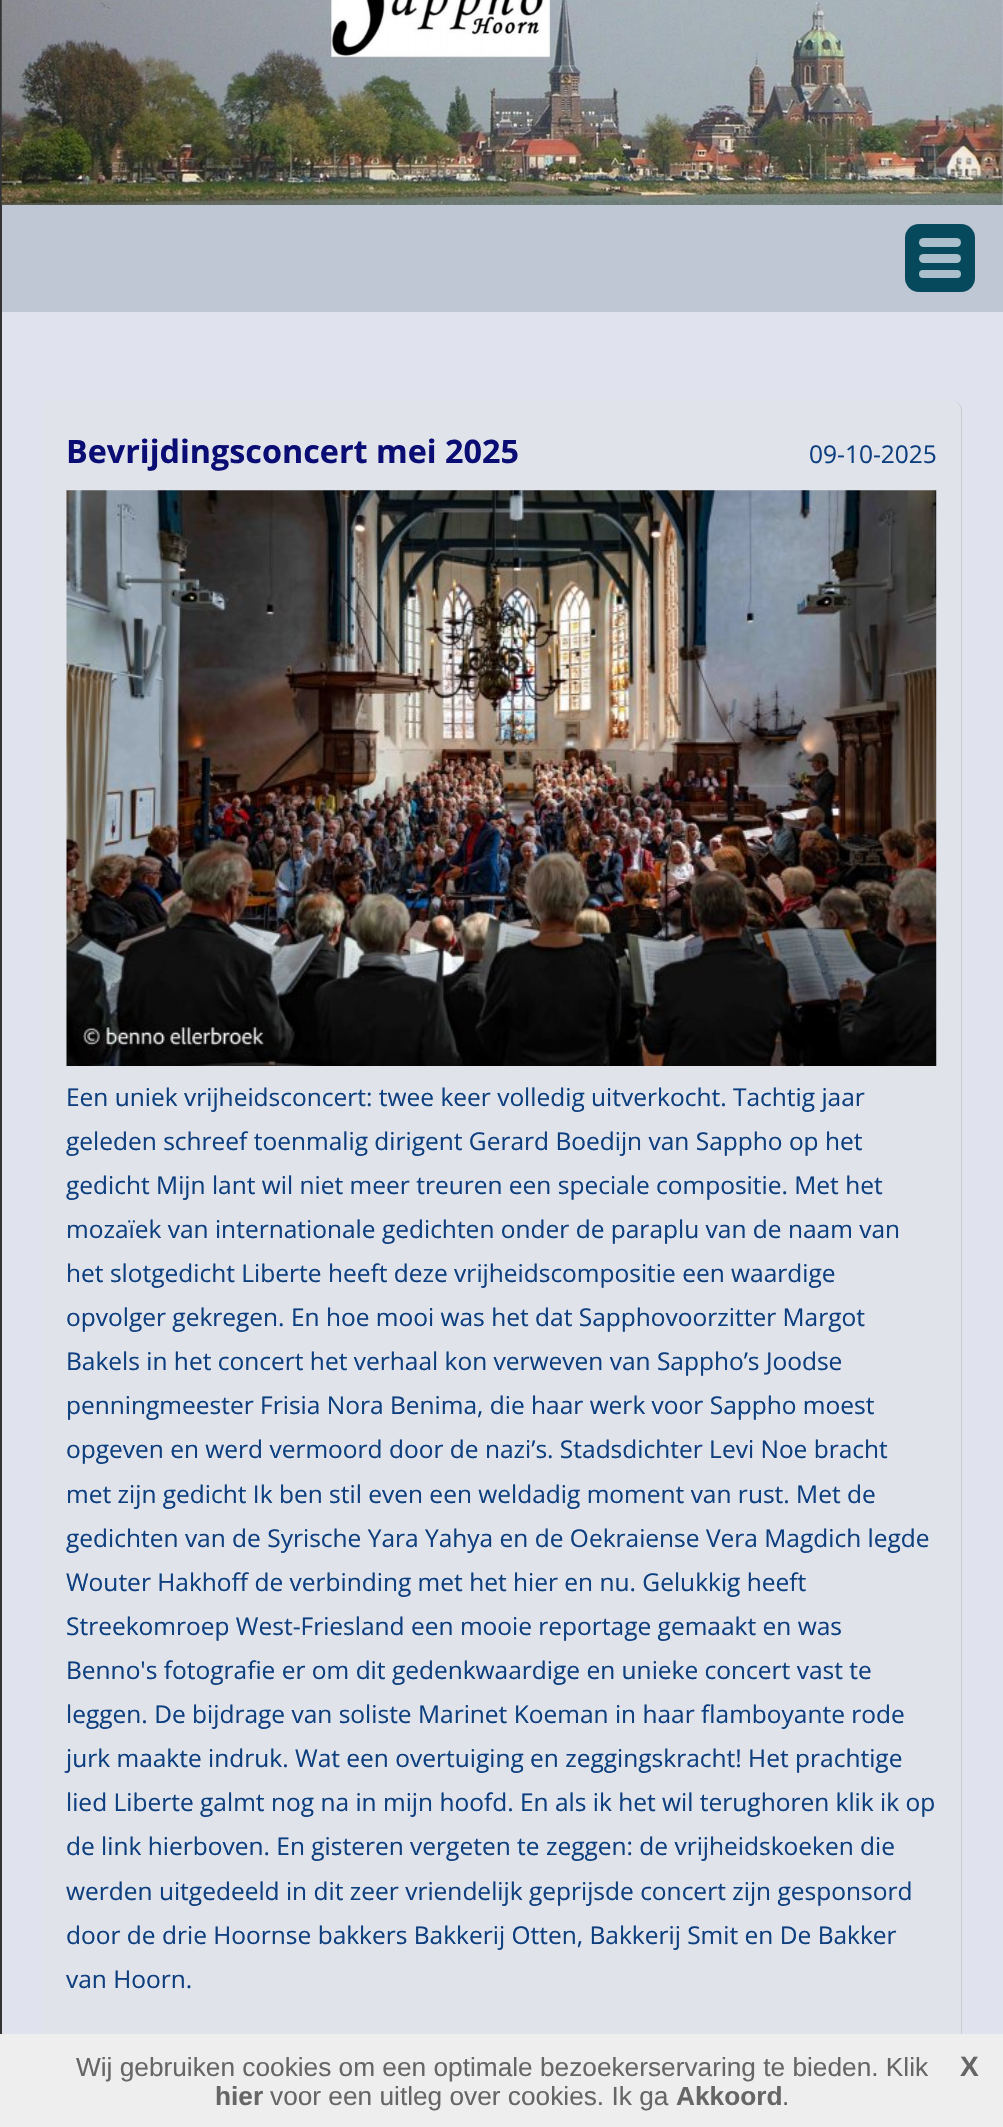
static SkFont makeFont(const char* family, int weight, float size, bool italic = false) {
  SkFontStyle style(weight, SkFontStyle::kNormal_Width,
    italic ? SkFontStyle::kItalic_Slant : SkFontStyle::kUpright_Slant);
  SkFont result(fontMgr->matchFamilyStyle(family, style), size);
  result.setSubpixel(true);
  return result;
}

static void text(SkCanvas* c, const char* s, float x, float y, const SkFont& font, SkColor color) {
  SkPaint ink(SkColor4f::FromColor(color));
  ink.setAntiAlias(true);
  c->drawString(s, x, y, font, ink);
}

static void box(SkCanvas* c, float l, float t, float r, float b, SkColor color) {
  SkPaint ink(SkColor4f::FromColor(color));
  ink.setAntiAlias(true);
  c->drawRect(SkRect::MakeLTRB(l, t, r, b), ink);
}

static void roundBox(SkCanvas* c, float l, float t, float r, float b, float radius, SkColor color) {
  SkPaint ink(SkColor4f::FromColor(color));
  ink.setAntiAlias(true);
  c->drawRoundRect(SkRect::MakeLTRB(l, t, r, b), radius, radius, ink);
}

static void picture(SkCanvas* c, const char* path, float l, float t, float r, float b) {
  auto image = SkImages::DeferredFromEncodedData(SkData::MakeFromFileName(path));
  c->drawImageRect(image, SkRect::MakeLTRB(l, t, r, b), SkSamplingOptions());
}

void draw(SkCanvas* c) {
  SkPaint paint;
  paint.setAntiAlias(true);
  c->clear(0xffbfc7d5);
  paint.setStyle(SkPaint::kStroke_Style);
  paint.setStrokeWidth(2);
  paint.setColor(0xff333333);
  c->drawRect(SkRect::MakeLTRB(1, -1, 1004, 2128), paint);
  picture(c, "img_01.png", 1, 0, 1003, 205);
  roundBox(c, 905, 224, 975, 292, 14, 0xff06495c);
  roundBox(c, 919, 238, 961, 247, 4.5f, 0xffaabfcb);
  roundBox(c, 919, 254, 961, 263, 4.5f, 0xffaabfcb);
  roundBox(c, 919, 270, 961, 278, 4, 0xffaabfcb);
  box(c, 2, 312, 1003, 2034, 0xffe0e2ee);
  roundBox(c, 42, 401, 963, 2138, 11, 0xffe1e3eb);
  paint.setStyle(SkPaint::kFill_Style);
  paint.setColor(0xffc9cbd2);
  c->drawPath(SkPathBuilder(SkPathFillType::kEvenOdd).moveTo(52, 401).lineTo(952, 401).cubicTo(958, 401, 962, 405, 962, 411).lineTo(962, 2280).cubicTo(962, 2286, 958, 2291, 952, 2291).lineTo(52, 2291).cubicTo(47, 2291, 42, 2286, 42, 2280).lineTo(42, 411).cubicTo(42, 405, 47, 401, 52, 401).close().moveTo(52, 401).lineTo(952, 401).cubicTo(957, 401, 961, 405, 961, 411).lineTo(961, 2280).cubicTo(961, 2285, 957, 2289, 952, 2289).lineTo(52, 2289).cubicTo(47, 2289, 42, 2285, 42, 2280).lineTo(42, 411).cubicTo(42, 405, 47, 401, 52, 401).close().detach(), paint);
  SkFont face1 = makeFont("Open Sans", 700, 32.3f);
  text(c, "Bevrijdingsconcert mei 2025", 66, 463, face1, 0xff0a0d73);
  SkFont face2 = makeFont("Open Sans", 400, 24.5f);
  text(c, "09-10-2025", 809, 463, face2, 0xff0d3f7f);
  picture(c, "img_02.png", 66, 490, 937, 1066);
  text(c, "Een uniek vrijheidsconcert: twee keer volledig uitverkocht. Tachtig jaar", 66, 1106, face2, 0xff0d3f7f);
  text(c, "geleden schreef toenmalig dirigent Gerard Boedijn van Sappho op het", 66, 1150, face2, 0xff0d3f7f);
  text(c, "gedicht Mijn lant wil niet meer treuren een speciale compositie. Met het", 66, 1194, face2, 0xff0d3f7f);
  text(c, "mozaïek van internationale gedichten onder de paraplu van de naam van", 66, 1238, face2, 0xff0d3f7f);
  text(c, "het slotgedicht Liberte heeft deze vrijheidscompositie een waardige", 66, 1282, face2, 0xff0d3f7f);
  text(c, "opvolger gekregen. En hoe mooi was het dat Sapphovoorzitter Margot", 66, 1326, face2, 0xff0d3f7f);
  text(c, "Bakels in het concert het verhaal kon verweven van Sappho’s Joodse", 66, 1370, face2, 0xff0d3f7f);
  text(c, "penningmeester Frisia Nora Benima, die haar werk voor Sappho moest", 66, 1414, face2, 0xff0d3f7f);
  text(c, "opgeven en werd vermoord door de nazi’s. Stadsdichter Levi Noe bracht", 66, 1458, face2, 0xff0d3f7f);
  text(c, "met zijn gedicht Ik ben stil even een weldadig moment van rust. Met de", 66, 1503, face2, 0xff0d3f7f);
  text(c, "gedichten van de Syrische Yara Yahya en de Oekraiense Vera Magdich legde", 66, 1547, face2, 0xff0d3f7f);
  text(c, "Wouter Hakhoff de verbinding met het hier en nu. Gelukkig heeft", 66, 1591, face2, 0xff0d3f7f);
  text(c, "Streekomroep West-Friesland een mooie reportage gemaakt en was", 66, 1635, face2, 0xff0d3f7f);
  text(c, "Benno's fotografie er om dit gedenkwaardige en unieke concert vast te", 66, 1679, face2, 0xff0d3f7f);
  text(c, "leggen. De bijdrage van soliste Marinet Koeman in haar flamboyante rode", 66, 1723, face2, 0xff0d3f7f);
  text(c, "jurk maakte indruk. Wat een overtuiging en zeggingskracht! Het prachtige", 66, 1767, face2, 0xff0d3f7f);
  text(c, "lied Liberte galmt nog na in mijn hoofd. En als ik het wil terughoren klik ik op", 66, 1811, face2, 0xff0d3f7f);
  text(c, "de link hierboven. En gisteren vergeten te zeggen: de vrijheidskoeken die", 66, 1855, face2, 0xff0d3f7f);
  text(c, "werden uitgedeeld in dit zeer vriendelijk geprijsde concert zijn gesponsord", 66, 1900, face2, 0xff0d3f7f);
  text(c, "door de drie Hoornse bakkers Bakkerij Otten, Bakkerij Smit en De Bakker", 66, 1944, face2, 0xff0d3f7f);
  text(c, "van Hoorn.", 66, 1988, face2, 0xff0d3f7f);
  box(c, 0, 2034, 1003, 2127, 0xffeeeeee);
  SkFont face3 = makeFont("Liberation Sans", 400, 26.25f);
  text(c, "Wij gebruiken cookies om een optimale bezoekerservaring te bieden. Klik", 76, 2076, face3, 0xff666666);
  SkFont face4 = makeFont("Liberation Sans", 700, 26.25f);
  text(c, "hier", 215, 2105, face4, 0xff666666);
  text(c, "voor een uitleg over cookies. Ik ga", 270, 2105, face3, 0xff666666);
  text(c, "Akkoord", 676, 2105, face4, 0xff666666);
  text(c, ".", 782, 2105, face3, 0xff666666);
  SkFont face5 = makeFont("Liberation Sans", 700, 28);
  text(c, "X", 960, 2076, face5, 0xff666666);
}
